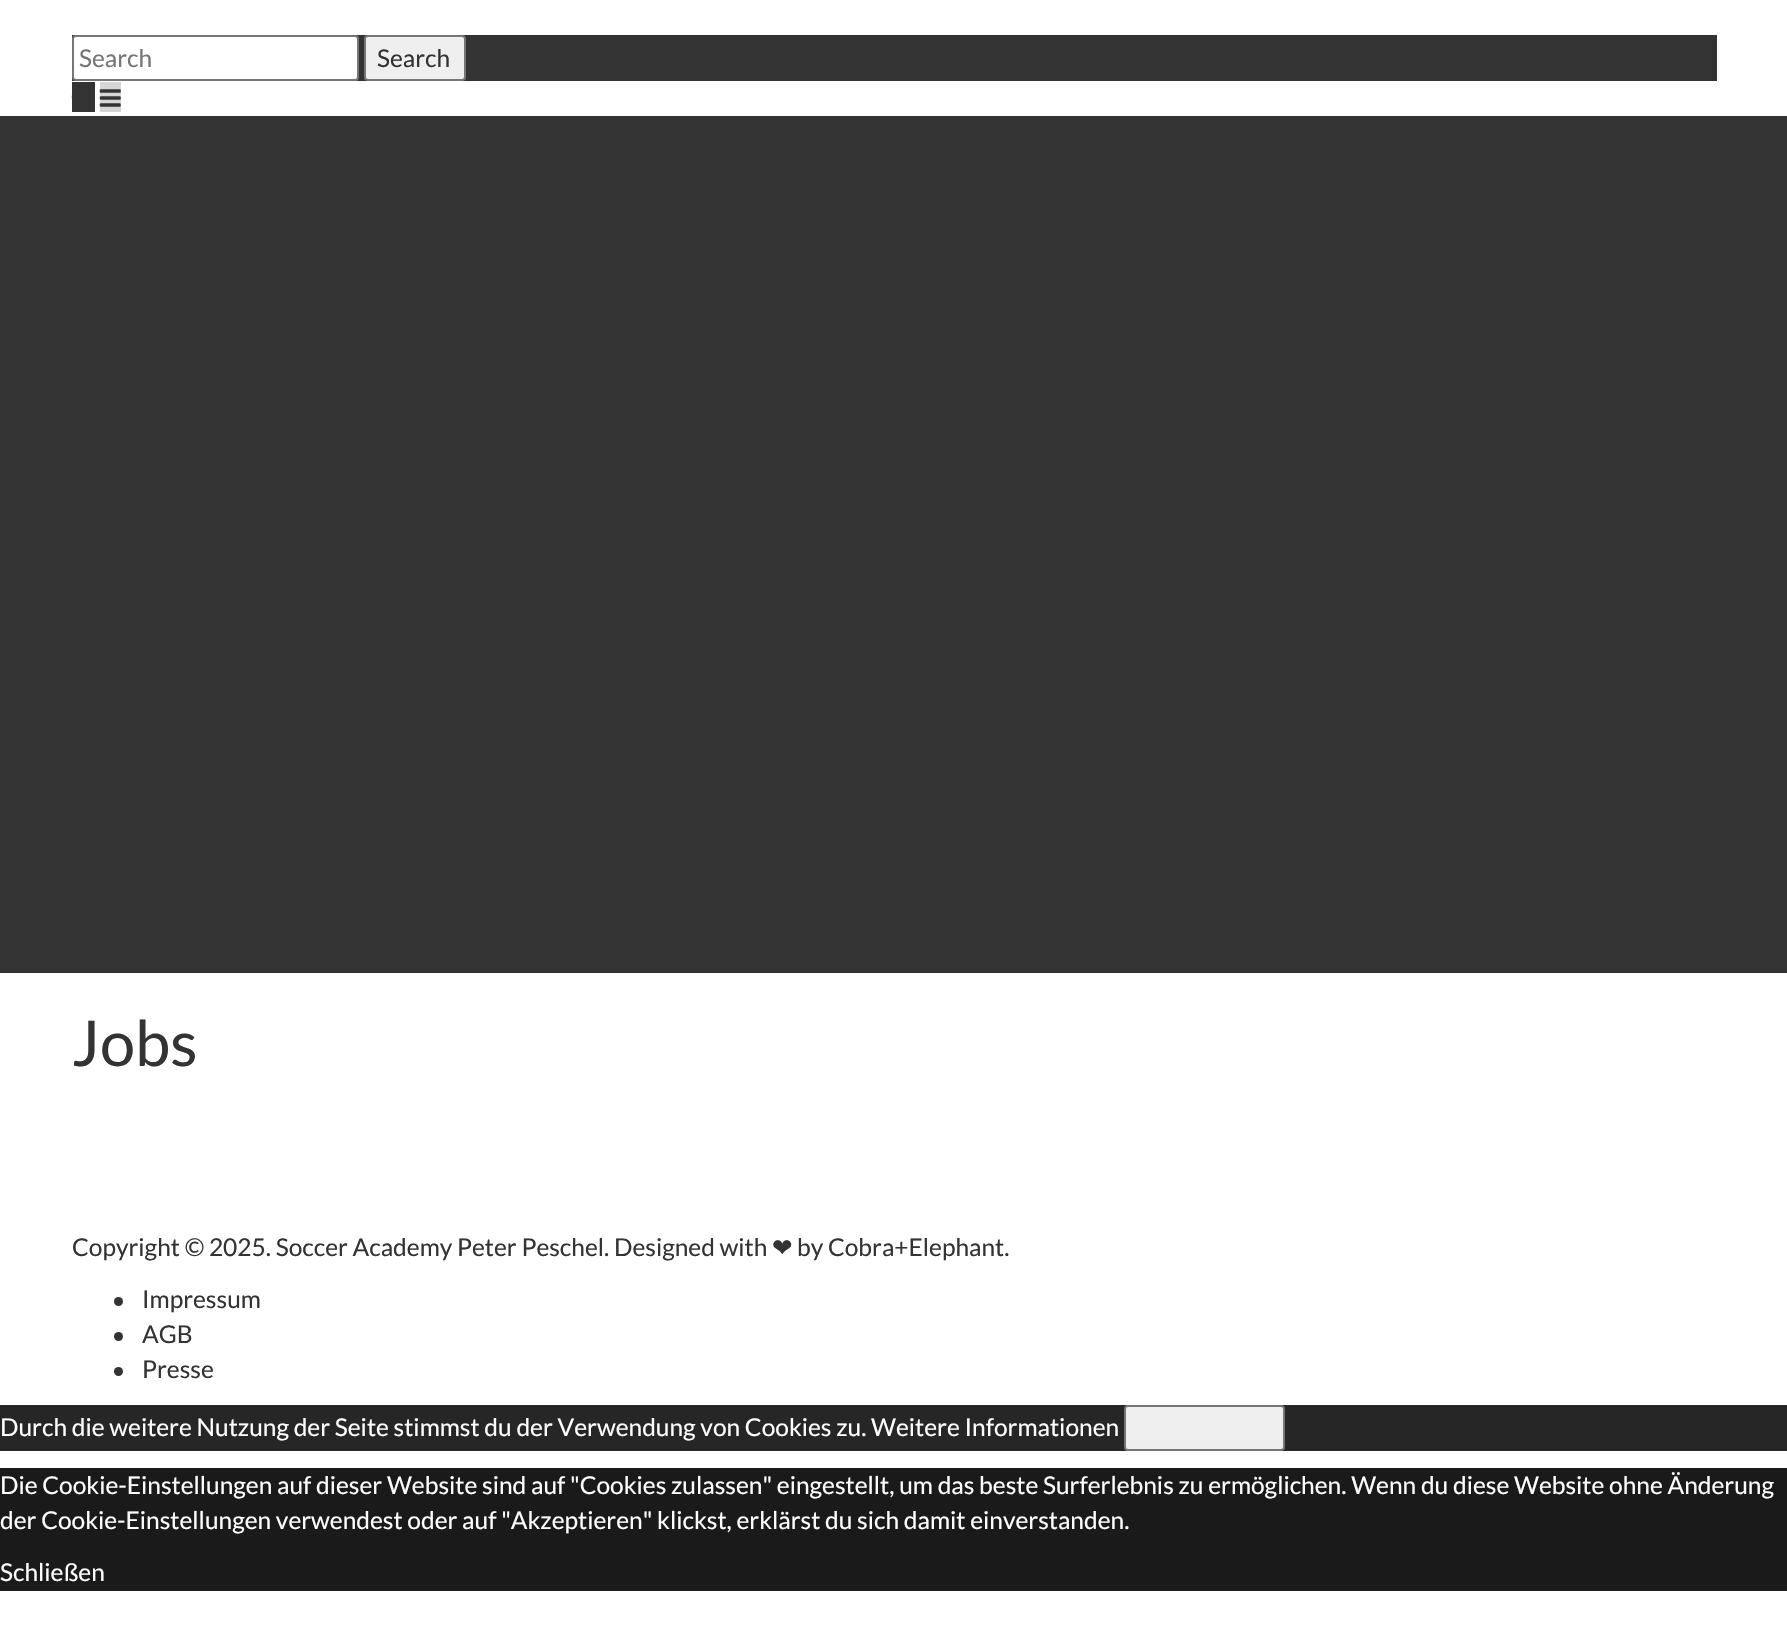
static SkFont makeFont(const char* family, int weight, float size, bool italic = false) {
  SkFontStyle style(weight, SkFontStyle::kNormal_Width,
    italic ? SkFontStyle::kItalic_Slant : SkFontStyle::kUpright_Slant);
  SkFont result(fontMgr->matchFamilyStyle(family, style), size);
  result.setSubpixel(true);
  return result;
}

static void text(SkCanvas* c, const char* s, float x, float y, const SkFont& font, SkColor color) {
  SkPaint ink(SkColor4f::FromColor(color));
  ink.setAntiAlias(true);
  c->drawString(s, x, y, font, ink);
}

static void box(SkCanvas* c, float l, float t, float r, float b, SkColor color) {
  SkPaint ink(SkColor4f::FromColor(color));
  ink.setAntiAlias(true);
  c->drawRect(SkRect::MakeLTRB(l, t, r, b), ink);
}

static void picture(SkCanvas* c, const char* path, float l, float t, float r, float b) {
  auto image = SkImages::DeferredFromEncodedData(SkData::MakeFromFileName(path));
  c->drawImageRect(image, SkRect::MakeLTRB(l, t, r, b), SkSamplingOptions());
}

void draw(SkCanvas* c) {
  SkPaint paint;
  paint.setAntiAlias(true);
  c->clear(0xffffffff);
  box(c, 72, 35, 1717, 81, 0xff333333);
  paint.setColor(0xffffffff);
  c->drawRoundRect(SkRect::MakeLTRB(73, 36, 358, 80), 3, 3, paint);
  paint.setStyle(SkPaint::kStroke_Style);
  paint.setStrokeWidth(2);
  paint.setColor(0xff767676);
  c->drawRoundRect(SkRect::MakeLTRB(73, 36, 358, 80), 3, 3, paint);
  SkFont face1 = makeFont("Lato", 400, 24.5f);
  text(c, "Search", 79, 67, face1, 0xff757575);
  paint.setStyle(SkPaint::kFill_Style);
  paint.setColor(0xffefefef);
  c->drawRoundRect(SkRect::MakeLTRB(365, 36, 465, 80), 3, 3, paint);
  paint.setStyle(SkPaint::kStroke_Style);
  paint.setColor(0xff767676);
  c->drawRoundRect(SkRect::MakeLTRB(365, 36, 465, 80), 3, 3, paint);
  text(c, "Search", 377, 67, face1, 0xff333333);
  box(c, 72, 82, 95, 112, 0xff333333);
  picture(c, "img_01.png", 71, 95, 72, 99);
  box(c, 100, 82, 121, 112, 0xffd6d6d6);
  picture(c, "img_02.png", 99, 89, 121, 107);
  box(c, 0, 116, 1787, 973, 0xff333333);
  SkFont face2 = makeFont("Lato", 400, 63);
  text(c, "Jobs", 72, 1066, face2, 0xff333333);
  text(c, "Copyright © 2025. Soccer Academy Peter Peschel. Designed with", 72, 1256, face1, 0xff333333);
  SkFont face3 = makeFont("DejaVu Sans", 400, 24.5f);
  text(c, "❤", 772, 1256, face3, 0xff333333);
  text(c, "by Cobra+Elephant.", 797, 1256, face1, 0xff333333);
  paint.setStyle(SkPaint::kFill_Style);
  paint.setColor(0xff333333);
  c->drawCircle(118.5f, 1301.5f, 4.5f, paint);
  text(c, "Impressum", 142, 1308, face1, 0xff333333);
  c->drawCircle(118.5f, 1336.5f, 4.5f, paint);
  text(c, "AGB", 142, 1343, face1, 0xff333333);
  c->drawCircle(118.5f, 1371.5f, 4.5f, paint);
  text(c, "Presse", 142, 1378, face1, 0xff333333);
  box(c, 0, 1405, 1787, 1451, 0xff262626);
  text(c, "Durch die weitere Nutzung der Seite stimmst du der Verwendung von Cookies zu. Weitere Informationen", 0, 1436, face1, 0xffffffff);
  paint.setColor(0xffefefef);
  c->drawRoundRect(SkRect::MakeLTRB(1125, 1406, 1284, 1450), 3, 3, paint);
  paint.setStyle(SkPaint::kStroke_Style);
  paint.setColor(0xff767676);
  c->drawRoundRect(SkRect::MakeLTRB(1125, 1406, 1284, 1450), 3, 3, paint);
  box(c, 0, 1468, 1787, 1591, 0xff1a1a1a);
  text(c, "Die Cookie-Einstellungen auf dieser Website sind auf \"Cookies zulassen\" eingestellt, um das beste Surferlebnis zu ermöglichen. Wenn du diese Website ohne Änderung", 0, 1494, face1, 0xffffffff);
  text(c, "der Cookie-Einstellungen verwendest oder auf \"Akzeptieren\" klickst, erklärst du sich damit einverstanden.", 0, 1529, face1, 0xffffffff);
  text(c, "Schließen", 0, 1581, face1, 0xffffffff);
}
